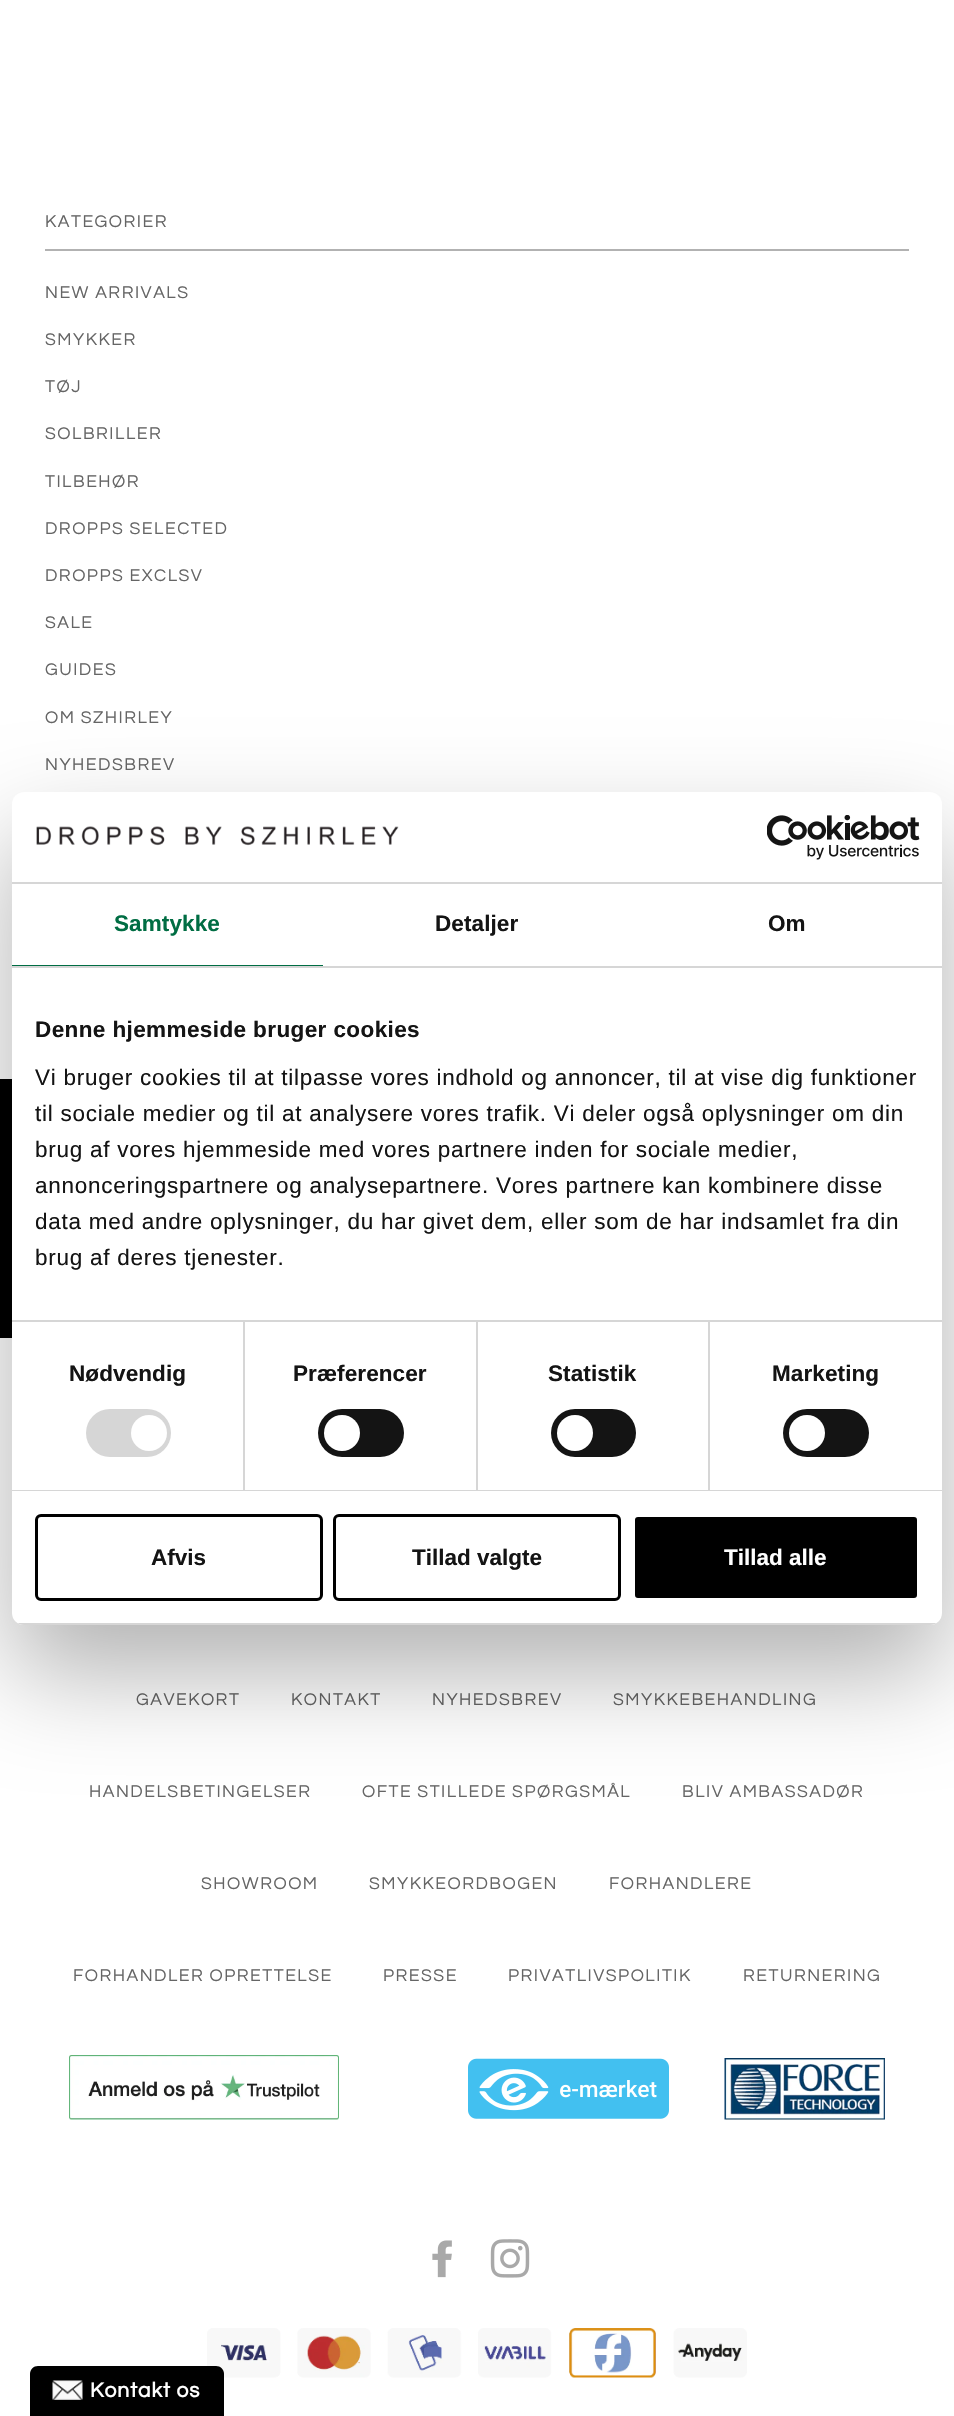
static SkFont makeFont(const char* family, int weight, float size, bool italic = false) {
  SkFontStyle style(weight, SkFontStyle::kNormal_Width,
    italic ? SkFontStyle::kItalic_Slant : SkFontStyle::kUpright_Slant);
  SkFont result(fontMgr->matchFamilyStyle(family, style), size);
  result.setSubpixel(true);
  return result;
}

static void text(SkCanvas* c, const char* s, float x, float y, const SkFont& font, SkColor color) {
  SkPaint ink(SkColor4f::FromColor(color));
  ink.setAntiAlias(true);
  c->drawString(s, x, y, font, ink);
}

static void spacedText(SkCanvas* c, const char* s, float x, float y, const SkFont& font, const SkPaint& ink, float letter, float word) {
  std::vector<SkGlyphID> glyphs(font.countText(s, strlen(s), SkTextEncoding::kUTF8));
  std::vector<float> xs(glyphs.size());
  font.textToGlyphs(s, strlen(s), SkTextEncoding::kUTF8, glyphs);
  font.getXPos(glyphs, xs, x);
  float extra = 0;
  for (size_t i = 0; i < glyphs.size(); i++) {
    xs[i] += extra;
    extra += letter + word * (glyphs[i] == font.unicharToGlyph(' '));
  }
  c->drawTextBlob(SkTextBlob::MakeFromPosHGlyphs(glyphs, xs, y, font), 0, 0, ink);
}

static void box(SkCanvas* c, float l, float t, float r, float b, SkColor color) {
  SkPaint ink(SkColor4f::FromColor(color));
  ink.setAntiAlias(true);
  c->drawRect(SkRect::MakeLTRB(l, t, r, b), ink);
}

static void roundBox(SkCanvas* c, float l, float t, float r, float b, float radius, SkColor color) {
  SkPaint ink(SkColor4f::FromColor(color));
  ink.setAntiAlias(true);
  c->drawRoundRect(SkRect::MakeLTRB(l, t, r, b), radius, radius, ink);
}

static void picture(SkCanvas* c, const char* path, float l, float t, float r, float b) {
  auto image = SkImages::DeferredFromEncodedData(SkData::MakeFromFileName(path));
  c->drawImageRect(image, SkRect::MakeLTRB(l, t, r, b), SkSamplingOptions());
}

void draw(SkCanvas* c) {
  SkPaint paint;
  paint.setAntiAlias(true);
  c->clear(0xffffffff);
  SkFont face1 = makeFont("Questrial", 400, 17.6f);
  paint.setColor(0xff656565);
  spacedText(c, "KATEGORIER", 45, 227, face1, paint, 1.5f, 0);
  box(c, 45, 249, 909, 251, 0xffb2b2b2);
  spacedText(c, "NEW ARRIVALS", 45, 298, face1, paint, 1.5f, 0);
  spacedText(c, "SMYKKER", 45, 345, face1, paint, 1.5f, 0);
  spacedText(c, "TØJ", 45, 392, face1, paint, 1.5f, 0);
  spacedText(c, "SOLBRILLER", 45, 439, face1, paint, 1.5f, 0);
  spacedText(c, "TILBEHØR", 45, 487, face1, paint, 1.5f, 0);
  spacedText(c, "DROPPS SELECTED", 45, 534, face1, paint, 1.5f, 0);
  spacedText(c, "DROPPS EXCLSV", 45, 581, face1, paint, 1.5f, 0);
  spacedText(c, "SALE", 45, 628, face1, paint, 1.5f, 0);
  spacedText(c, "GUIDES", 45, 675, face1, paint, 1.5f, 0);
  spacedText(c, "OM SZHIRLEY", 45, 723, face1, paint, 1.5f, 0);
  spacedText(c, "NYHEDSBREV", 45, 770, face1, paint, 1.5f, 0);
  spacedText(c, "GAVEKORT", 136, 1705, face1, paint, 1.5f, 0);
  spacedText(c, "KONTAKT", 291, 1705, face1, paint, 1.5f, 0);
  spacedText(c, "NYHEDSBREV", 432, 1705, face1, paint, 1.5f, 0);
  spacedText(c, "SMYKKEBEHANDLING", 613, 1705, face1, paint, 1.5f, 0);
  spacedText(c, "HANDELSBETINGELSER", 89, 1797, face1, paint, 1.5f, 0);
  spacedText(c, "OFTE STILLEDE SPØRGSMÅL", 362, 1797, face1, paint, 1.5f, 0);
  spacedText(c, "BLIV AMBASSADØR", 682, 1797, face1, paint, 1.5f, 0);
  spacedText(c, "SHOWROOM", 201, 1889, face1, paint, 1.5f, 0);
  spacedText(c, "SMYKKEORDBOGEN", 369, 1889, face1, paint, 1.5f, 0);
  spacedText(c, "FORHANDLERE", 609, 1889, face1, paint, 1.5f, 0);
  spacedText(c, "FORHANDLER OPRETTELSE", 73, 1981, face1, paint, 1.5f, 0);
  spacedText(c, "PRESSE", 383, 1981, face1, paint, 1.5f, 0);
  spacedText(c, "PRIVATLIVSPOLITIK", 508, 1981, face1, paint, 1.5f, 0);
  spacedText(c, "RETURNERING", 743, 1981, face1, paint, 1.5f, 0);
  picture(c, "img_01.png", 69, 2055, 339, 2120);
  picture(c, "img_02.png", 468, 2058, 669, 2119);
  picture(c, "img_03.png", 724, 2058, 885, 2120);
  picture(c, "img_04.png", 432, 2240, 452, 2278);
  picture(c, "img_05.png", 490, 2239, 530, 2278);
  picture(c, "img_06.png", 207, 2328, 747, 2378);
  box(c, 0, 1079, 12, 1338, 0xff000000);
  paint.setColor(0x4d000000);
  paint.setMaskFilter(SkMaskFilter::MakeBlur(kNormal_SkBlurStyle, 51));
  c->drawRoundRect(SkRect::MakeLTRB(12, 840, 942, 1673), 12, 12, paint);
  paint.setMaskFilter(nullptr);
  roundBox(c, 12, 792, 942, 1625, 12, 0xffffffff);
  box(c, 12, 882, 942, 884, 0xffd6d6d6);
  picture(c, "img_07.png", 36, 826, 399, 846);
  picture(c, "img_08.png", 767, 815, 920, 860);
  box(c, 12, 966, 942, 968, 0xffd6d6d6);
  box(c, 12, 965, 323, 966, 0xff006d43);
  SkFont face2 = makeFont("Liberation Sans", 700, 22.5f);
  paint.setColor(0xff006d43);
  spacedText(c, "Samtykke", 114, 931, face2, paint, 0.1f, 0);
  paint.setColor(0xff141414);
  spacedText(c, "Detaljer", 435, 931, face2, paint, 0.1f, 0);
  spacedText(c, "Om", 768, 931, face2, paint, 0.1f, 0);
  box(c, 12, 1320, 942, 1322, 0xffd6d6d6);
  spacedText(c, "Denne hjemmeside bruger cookies", 35, 1037, face2, paint, 0.4f, 0);
  SkFont face3 = makeFont("Liberation Sans", 400, 22.5f);
  spacedText(c, "Vi bruger cookies til at tilpasse vores indhold og annoncer, til at vise dig funktioner", 35, 1085, face3, paint, 0.75f, 0);
  spacedText(c, "til sociale medier og til at analysere vores trafik. Vi deler også oplysninger om din", 35, 1121, face3, paint, 0.75f, 0);
  spacedText(c, "brug af vores hjemmeside med vores partnere inden for sociale medier,", 35, 1157, face3, paint, 0.75f, 0);
  spacedText(c, "annonceringspartnere og analysepartnere. Vores partnere kan kombinere disse", 35, 1193, face3, paint, 0.75f, 0);
  spacedText(c, "data med andre oplysninger, du har givet dem, eller som de har indsamlet fra din", 35, 1229, face3, paint, 0.75f, 0);
  spacedText(c, "brug af deres tjenester.", 35, 1265, face3, paint, 0.75f, 0);
  box(c, 12, 1490, 942, 1491, 0xffd6d6d6);
  box(c, 243, 1322, 245, 1490, 0xffd6d6d6);
  spacedText(c, "Nødvendig", 69, 1381, face2, paint, 0.1f, 0);
  roundBox(c, 86, 1409, 171, 1457, 24, 0xffd6d6d6);
  paint.setColor(0xffffffff);
  c->drawCircle(149, 1433, 18, paint);
  box(c, 476, 1322, 478, 1490, 0xffd6d6d6);
  paint.setColor(0xff141414);
  spacedText(c, "Præferencer", 293, 1381, face2, paint, 0.1f, 0);
  roundBox(c, 318, 1409, 404, 1457, 24, 0xff141414);
  paint.setColor(0xffffffff);
  c->drawCircle(342, 1433, 18, paint);
  box(c, 708, 1322, 710, 1490, 0xffd6d6d6);
  paint.setColor(0xff141414);
  spacedText(c, "Statistik", 548, 1381, face2, paint, 0.1f, 0);
  roundBox(c, 551, 1409, 636, 1457, 24, 0xff141414);
  paint.setColor(0xffffffff);
  c->drawCircle(575, 1433, 18, paint);
  paint.setColor(0xff141414);
  spacedText(c, "Marketing", 772, 1381, face2, paint, 0.1f, 0);
  roundBox(c, 783, 1409, 869, 1457, 24, 0xff141414);
  paint.setColor(0xffffffff);
  c->drawCircle(807, 1433, 18, paint);
  c->save();
  c->clipPath(SkPathBuilder().moveTo(24, 792).lineTo(930, 792).cubicTo(936.5f, 792, 942, 797.5f, 942, 804).lineTo(942, 1613).cubicTo(942, 1619.5f, 936.5f, 1625, 930, 1625).lineTo(24, 1625).cubicTo(17.5f, 1625, 12, 1619.5f, 12, 1613).lineTo(12, 804).cubicTo(12, 797.5f, 17.5f, 792, 24, 792).close().detach(), true);
  box(c, 12, 1623, 942, 1625, 0xffd6d6d6);
  c->restore();
  paint.setStyle(SkPaint::kStroke_Style);
  paint.setStrokeWidth(3);
  paint.setColor(0xff000000);
  c->drawRoundRect(SkRect::MakeLTRB(36.5f, 1515.5f, 321.5f, 1599.5f), 4.5f, 4.5f, paint);
  text(c, "Afvis", 151, 1565, face2, 0xff141414);
  c->drawRoundRect(SkRect::MakeLTRB(334.5f, 1515.5f, 619.5f, 1599.5f), 4.5f, 4.5f, paint);
  text(c, "Tillad valgte", 412, 1565, face2, 0xff141414);
  paint.setStyle(SkPaint::kFill_Style);
  c->drawRoundRect(SkRect::MakeLTRB(633.5f, 1515.5f, 918.5f, 1599.5f), 4.5f, 4.5f, paint);
  paint.setStyle(SkPaint::kStroke_Style);
  paint.setColor(0xffffffff);
  c->drawRoundRect(SkRect::MakeLTRB(633.5f, 1515.5f, 918.5f, 1599.5f), 4.5f, 4.5f, paint);
  text(c, "Tillad alle", 724, 1565, face2, 0xffffffff);
  paint.setStyle(SkPaint::kFill_Style);
  paint.setColor(0xff000000);
  c->drawPath(SkPathBuilder().moveTo(38, 2366).lineTo(216, 2366).cubicTo(220.5f, 2366, 224, 2369.5f, 224, 2374).lineTo(224, 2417).lineTo(30, 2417).lineTo(30, 2374).cubicTo(30, 2369.5f, 33.5f, 2366, 38, 2366).close().detach(), paint);
  picture(c, "img_09.png", 52, 2380, 83, 2400);
  SkFont face4 = makeFont("Questrial", 700, 21);
  paint.setColor(0xffffffff);
  spacedText(c, "Kontakt os", 90, 2397, face4, paint, 1, 0);
}
